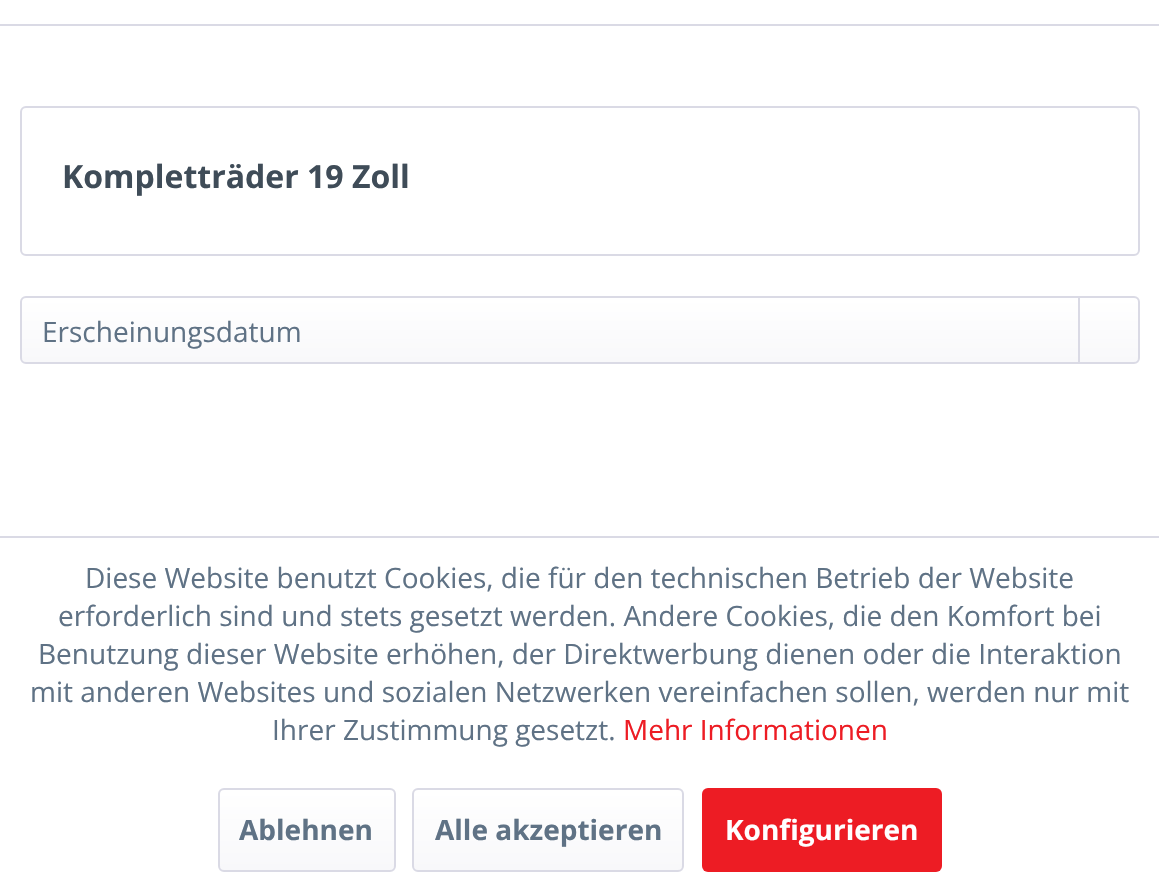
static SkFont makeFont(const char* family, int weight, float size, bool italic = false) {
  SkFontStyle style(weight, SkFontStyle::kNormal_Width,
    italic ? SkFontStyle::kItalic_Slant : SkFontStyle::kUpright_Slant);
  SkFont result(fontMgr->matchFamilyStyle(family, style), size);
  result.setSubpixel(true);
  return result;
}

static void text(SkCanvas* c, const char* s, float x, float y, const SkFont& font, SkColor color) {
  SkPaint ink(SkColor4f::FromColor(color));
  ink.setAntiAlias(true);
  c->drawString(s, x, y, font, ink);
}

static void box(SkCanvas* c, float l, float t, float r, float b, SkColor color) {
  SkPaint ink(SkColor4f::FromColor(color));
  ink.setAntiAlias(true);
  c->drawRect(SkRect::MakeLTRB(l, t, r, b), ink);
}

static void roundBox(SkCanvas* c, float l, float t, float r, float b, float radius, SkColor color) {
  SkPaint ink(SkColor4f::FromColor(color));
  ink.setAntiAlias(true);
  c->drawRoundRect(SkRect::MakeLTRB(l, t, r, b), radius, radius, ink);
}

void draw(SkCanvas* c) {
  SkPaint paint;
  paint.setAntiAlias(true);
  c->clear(0xffffffff);
  box(c, 0, 24, 1159, 26, 0xffdadae5);
  paint.setStyle(SkPaint::kStroke_Style);
  paint.setStrokeWidth(2);
  paint.setColor(0xffdadae5);
  c->drawRoundRect(SkRect::MakeLTRB(21, 107, 1139, 255), 5, 5, paint);
  SkFont face1 = makeFont("Open Sans", 700, 32);
  text(c, "Kompletträder 19 Zoll", 62, 188, face1, 0xff3f4c58);
  paint.setStyle(SkPaint::kFill_Style);
  {
    const SkColor colors[] = {0xffffffff, 0xfff8f8fa};
    const float stops[] = {0, 1};
    const SkPoint ends[] = {{580, 298}, {580, 362}};
    paint.setShader(SkGradientShader::MakeLinear(ends, colors, stops, 2, SkTileMode::kClamp));
    paint.setAlpha(255);
  }
  c->drawRoundRect(SkRect::MakeLTRB(22, 298, 1138, 362), 4, 4, paint);
  paint.setStyle(SkPaint::kStroke_Style);
  paint.setShader(nullptr);
  paint.setColor(0xffdadae5);
  c->drawRoundRect(SkRect::MakeLTRB(21, 297, 1139, 363), 5, 5, paint);
  SkFont face2 = makeFont("Open Sans", 400, 28);
  text(c, "Erscheinungsdatum", 42, 342, face2, 0xff5f7285);
  box(c, 1078, 298, 1080, 364, 0xffdadae5);
  box(c, 0, 536, 1159, 538, 0xffdadae5);
  text(c, "Diese Website benutzt Cookies, die für den technischen Betrieb der Website", 85, 588, face2, 0xff5f7285);
  text(c, "erforderlich sind und stets gesetzt werden. Andere Cookies, die den Komfort bei", 58, 626, face2, 0xff5f7285);
  text(c, "Benutzung dieser Website erhöhen, der Direktwerbung dienen oder die Interaktion", 38, 664, face2, 0xff5f7285);
  text(c, "mit anderen Websites und sozialen Netzwerken vereinfachen sollen, werden nur mit", 30, 702, face2, 0xff5f7285);
  text(c, "Ihrer Zustimmung gesetzt.", 272, 740, face2, 0xff5f7285);
  text(c, "Mehr Informationen", 623, 740, face2, 0xffed1c24);
  paint.setStyle(SkPaint::kFill_Style);
  {
    const SkColor colors[] = {0xffffffff, 0xfff8f8fa};
    const float stops[] = {0, 1};
    const SkPoint ends[] = {{307, 790}, {307, 870}};
    paint.setShader(SkGradientShader::MakeLinear(ends, colors, stops, 2, SkTileMode::kClamp));
    paint.setAlpha(255);
  }
  c->drawRoundRect(SkRect::MakeLTRB(220, 790, 394, 870), 4, 4, paint);
  paint.setStyle(SkPaint::kStroke_Style);
  paint.setShader(nullptr);
  paint.setColor(0xffdadae5);
  c->drawRoundRect(SkRect::MakeLTRB(219, 789, 395, 871), 5, 5, paint);
  SkFont face3 = makeFont("Open Sans", 700, 28);
  text(c, "Ablehnen", 239, 840, face3, 0xff5f7285);
  paint.setStyle(SkPaint::kFill_Style);
  {
    const SkColor colors[] = {0xffffffff, 0xfff8f8fa};
    const float stops[] = {0, 1};
    const SkPoint ends[] = {{548, 790}, {548, 870}};
    paint.setShader(SkGradientShader::MakeLinear(ends, colors, stops, 2, SkTileMode::kClamp));
    paint.setAlpha(255);
  }
  c->drawRoundRect(SkRect::MakeLTRB(414, 790, 682, 870), 4, 4, paint);
  paint.setStyle(SkPaint::kStroke_Style);
  paint.setShader(nullptr);
  paint.setColor(0xffdadae5);
  c->drawRoundRect(SkRect::MakeLTRB(413, 789, 683, 871), 5, 5, paint);
  text(c, "Alle akzeptieren", 435, 840, face3, 0xff5f7285);
  roundBox(c, 702, 788, 942, 872, 6, 0xffed1c24);
  text(c, "Konfigurieren", 725, 840, face3, 0xffffffff);
}
